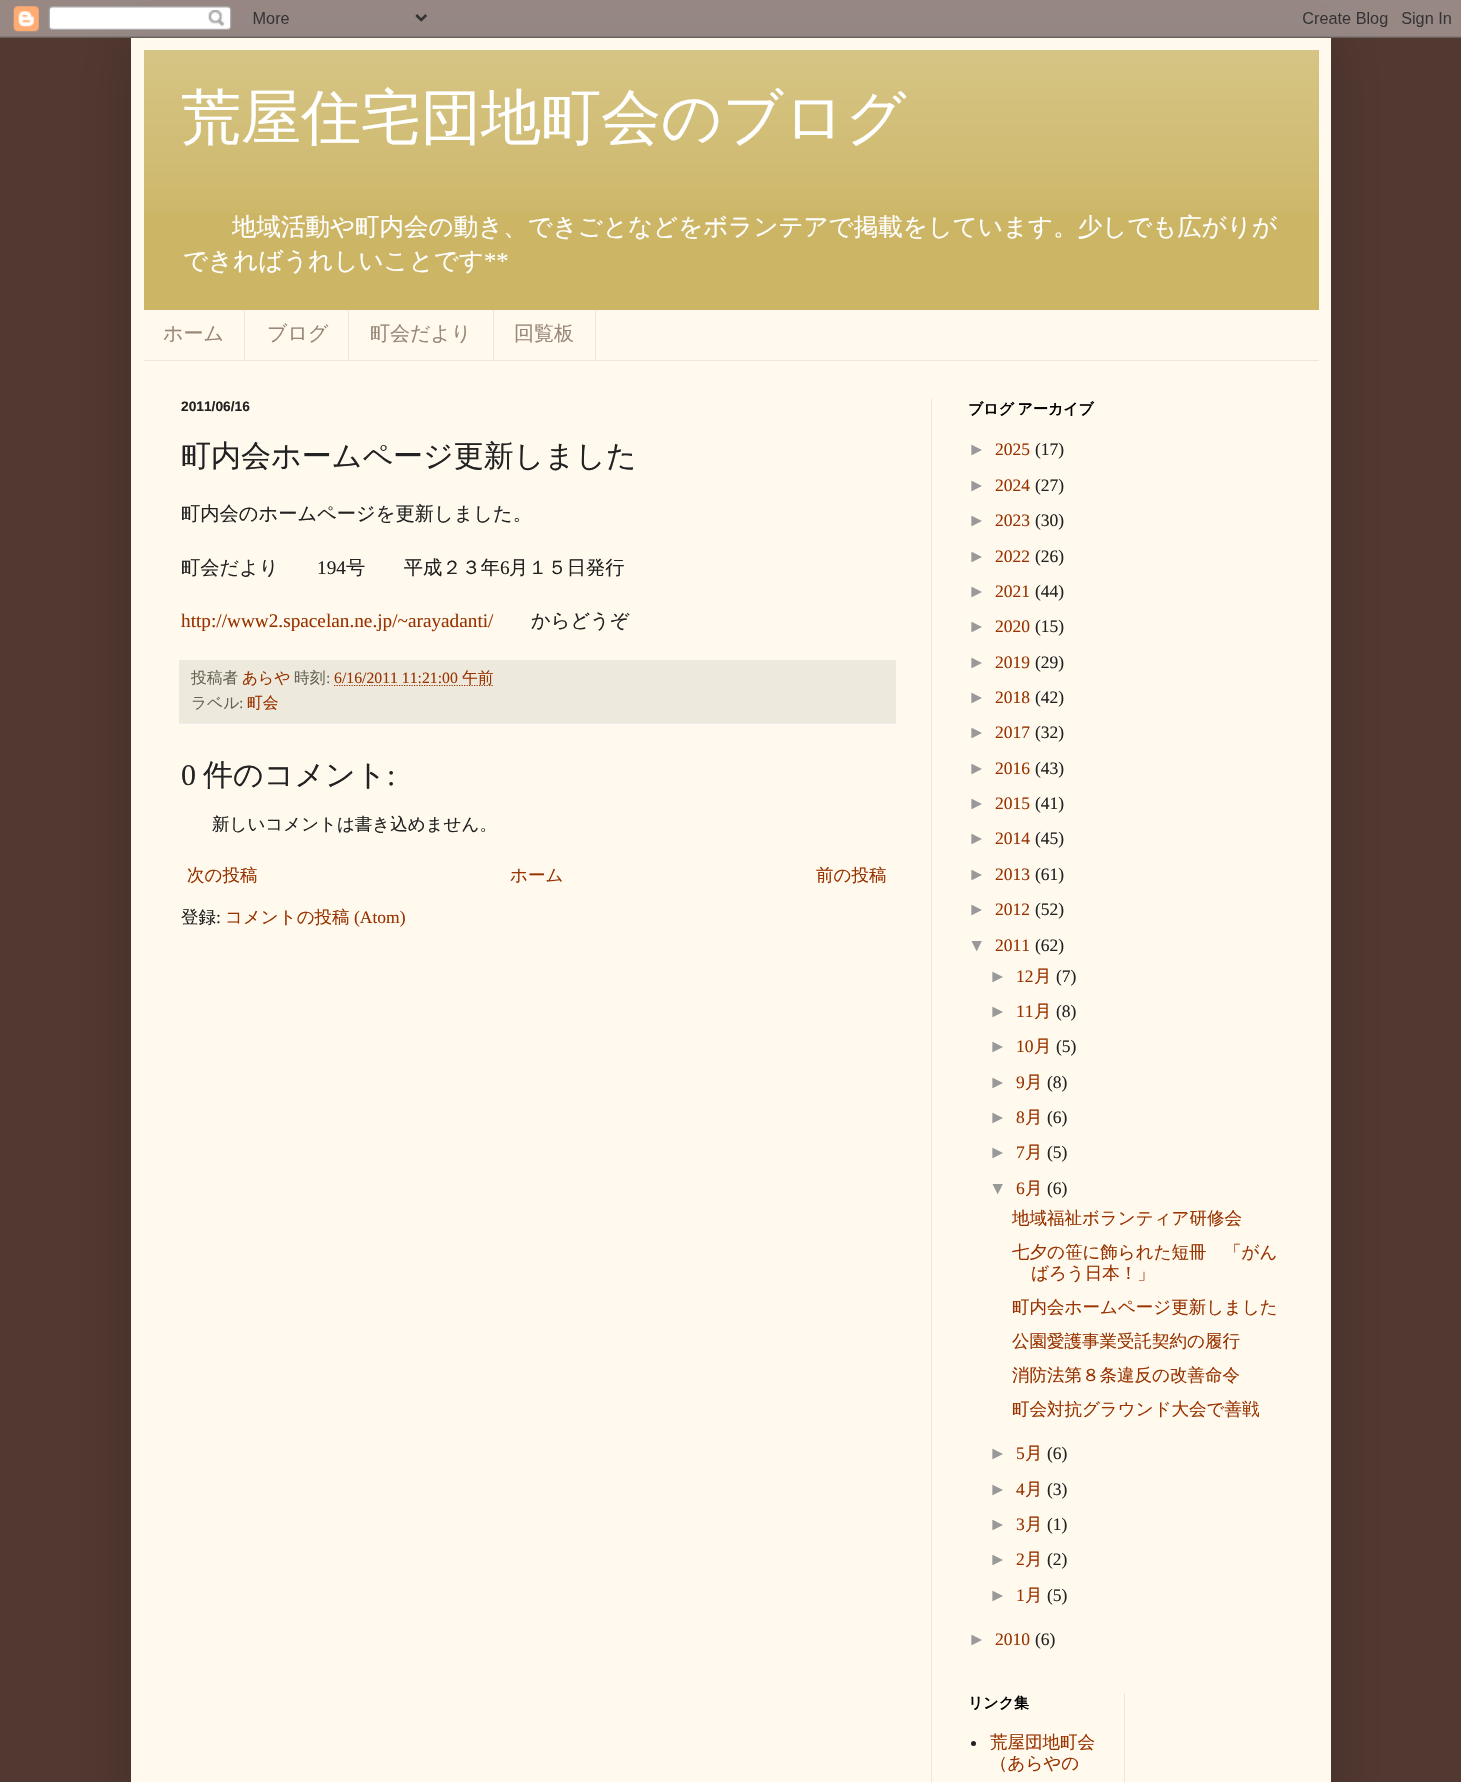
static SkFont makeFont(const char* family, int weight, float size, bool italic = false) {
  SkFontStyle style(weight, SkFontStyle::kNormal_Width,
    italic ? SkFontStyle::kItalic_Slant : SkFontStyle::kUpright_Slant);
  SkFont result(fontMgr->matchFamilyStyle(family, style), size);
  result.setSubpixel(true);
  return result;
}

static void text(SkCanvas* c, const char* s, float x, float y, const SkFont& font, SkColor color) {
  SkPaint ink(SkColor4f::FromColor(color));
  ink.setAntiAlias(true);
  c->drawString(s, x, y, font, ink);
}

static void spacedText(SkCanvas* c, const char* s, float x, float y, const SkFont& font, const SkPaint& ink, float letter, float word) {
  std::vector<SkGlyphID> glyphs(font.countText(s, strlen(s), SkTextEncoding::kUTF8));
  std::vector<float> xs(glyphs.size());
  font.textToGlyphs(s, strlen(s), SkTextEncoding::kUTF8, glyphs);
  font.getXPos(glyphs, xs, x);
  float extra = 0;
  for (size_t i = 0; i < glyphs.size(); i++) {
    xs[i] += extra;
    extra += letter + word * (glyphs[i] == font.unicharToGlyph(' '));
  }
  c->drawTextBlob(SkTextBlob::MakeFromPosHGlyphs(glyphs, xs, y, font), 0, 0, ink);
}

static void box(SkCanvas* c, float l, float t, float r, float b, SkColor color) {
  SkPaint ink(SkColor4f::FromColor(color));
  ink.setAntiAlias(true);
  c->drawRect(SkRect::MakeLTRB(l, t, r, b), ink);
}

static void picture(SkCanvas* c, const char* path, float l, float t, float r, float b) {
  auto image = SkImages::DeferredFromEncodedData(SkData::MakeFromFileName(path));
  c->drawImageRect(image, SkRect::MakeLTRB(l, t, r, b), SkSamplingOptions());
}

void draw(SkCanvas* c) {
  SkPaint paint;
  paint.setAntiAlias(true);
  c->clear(0xff513831);
  paint.setColor(0x26000000);
  paint.setMaskFilter(SkMaskFilter::MakeBlur(kNormal_SkBlurStyle, 25));
  c->drawRect(SkRect::MakeLTRB(131, 38, 1331, 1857), paint);
  paint.setMaskFilter(nullptr);
  picture(c, "img_01.png", 0, 0, 1461, 38);
  box(c, 131, 38, 1331, 1782, 0xfffff9ee);
  box(c, 144, 50, 1319, 310, 0xffccb666);
  picture(c, "img_02.png", 144, 50, 1319, 213);
  SkFont face1 = makeFont("WenQuanYi Zen Hei", 500, 60);
  text(c, "荒屋住宅団地町会のブログ", 181, 138, face1, 0xffffffff);
  SkFont face2 = makeFont("WenQuanYi Zen Hei", 500, 24.5f);
  text(c, "地域活動や町内会の動き、できごとなどをボランテアで掲載をしています。少しでも広がりが", 232, 235, face2, 0xffffffff);
  text(c, "できればうれしいことです", 183, 269, face2, 0xffffffff);
  SkFont face3 = makeFont("Liberation Serif", 400, 24.5f);
  text(c, "**", 484, 269, face3, 0xffffffff);
  box(c, 144, 360, 1319, 361, 0xffeee5dd);
  box(c, 244, 310, 245, 360, 0xffeee5dd);
  SkFont face4 = makeFont("WenQuanYi Zen Hei", 500, 20);
  text(c, "ホーム", 163, 340, face4, 0xff998877);
  box(c, 348, 310, 349, 360, 0xffeee5dd);
  text(c, "ブログ", 267, 340, face4, 0xff998877);
  box(c, 493, 310, 494, 360, 0xffeee5dd);
  text(c, "町会だより", 370, 340, face4, 0xff998877);
  box(c, 595, 310, 596, 360, 0xffeee5dd);
  text(c, "回覧板", 514, 340, face4, 0xff998877);
  box(c, 931, 399, 932, 1782, 0xffeee5dd);
  SkFont face5 = makeFont("Liberation Sans", 700, 13.75f);
  text(c, "2011/06/16", 181, 411, face5, 0xff222222);
  SkFont face6 = makeFont("WenQuanYi Zen Hei", 500, 30);
  text(c, "町内会ホームページ更新しました", 181, 466, face6, 0xff222222);
  SkFont face7 = makeFont("WenQuanYi Zen Hei", 500, 19.25f);
  text(c, "町内会のホームページを更新しました。", 181, 520, face7, 0xff222222);
  text(c, "町会だより", 181, 574, face7, 0xff222222);
  SkFont face8 = makeFont("Liberation Serif", 400, 19.25f);
  text(c, "194", 317, 574, face8, 0xff222222);
  text(c, "号　　平成２３年", 346, 574, face7, 0xff222222);
  text(c, "6", 500, 574, face8, 0xff222222);
  text(c, "月１５日発行", 509, 574, face7, 0xff222222);
  text(c, "http://www2.spacelan.ne.jp/~arayadanti/", 181, 627, face8, 0xff993300);
  text(c, "からどうぞ", 531, 627, face7, 0xff222222);
  box(c, 179, 660, 896, 723, 0xffeee9dd);
  box(c, 179, 723, 896, 724, 0xffeeeeee);
  SkFont face9 = makeFont("WenQuanYi Zen Hei", 500, 15.75f);
  text(c, "投稿者", 191, 683, face9, 0xff666555);
  text(c, "あらや", 242, 683, face9, 0xff993300);
  text(c, "時刻", 294, 683, face9, 0xff666555);
  SkFont face10 = makeFont("Liberation Serif", 400, 15.75f);
  text(c, ":", 326, 683, face10, 0xff666555);
  text(c, "6/16/2011 11:21:00", 334, 683, face10, 0xff993300);
  paint.setStyle(SkPaint::kStroke_Style);
  paint.setStrokeWidth(1.2f);
  paint.setColor(0xff993300);
  paint.setPathEffect(SkDashPathEffect::Make({{1.25f, 1.25f}}, 0));
  c->drawPath(SkPathBuilder().moveTo(334, 685.5f).lineTo(493, 685.5f).detach(), paint);
  paint.setPathEffect(nullptr);
  text(c, "午前", 462, 683, face9, 0xff993300);
  text(c, "ラベル", 191, 708, face9, 0xff666555);
  text(c, ":", 239, 708, face10, 0xff666555);
  text(c, "町会", 247, 708, face9, 0xff993300);
  SkFont face11 = makeFont("Liberation Serif", 400, 30);
  text(c, "0", 181, 785, face11, 0xff222222);
  text(c, "件のコメント", 203, 785, face6, 0xff222222);
  text(c, ":", 387, 785, face11, 0xff222222);
  SkFont face12 = makeFont("WenQuanYi Zen Hei", 500, 17.5f);
  text(c, "新しいコメントは書き込めません。", 212, 830, face12, 0xff222222);
  text(c, "次の投稿", 187, 881, face12, 0xff993300);
  text(c, "ホーム", 510, 881, face12, 0xff993300);
  text(c, "前の投稿", 816, 881, face12, 0xff993300);
  text(c, "登録", 181, 923, face12, 0xff222222);
  SkFont face13 = makeFont("Liberation Serif", 400, 17.5f);
  text(c, ":", 216, 923, face13, 0xff222222);
  text(c, "コメントの投稿", 225, 923, face12, 0xff993300);
  text(c, "(Atom)", 354, 923, face13, 0xff993300);
  SkFont face14 = makeFont("WenQuanYi Zen Hei", 700, 15);
  paint.setStyle(SkPaint::kFill_Style);
  paint.setColor(0xff000000);
  spacedText(c, "ブログ アーカイブ", 968, 414, face14, paint, 0, -1);
  SkFont face15 = makeFont("Liberation Sans", 400, 17.5f);
  text(c, "►", 968, 455, face15, 0xff999999);
  text(c, "2025", 995, 455, face13, 0xff993300);
  text(c, "(17)", 1035, 455, face13, 0xff222222);
  text(c, "►", 968, 491, face15, 0xff999999);
  text(c, "2024", 995, 491, face13, 0xff993300);
  text(c, "(27)", 1035, 491, face13, 0xff222222);
  text(c, "►", 968, 526, face15, 0xff999999);
  text(c, "2023", 995, 526, face13, 0xff993300);
  text(c, "(30)", 1035, 526, face13, 0xff222222);
  text(c, "►", 968, 562, face15, 0xff999999);
  text(c, "2022", 995, 562, face13, 0xff993300);
  text(c, "(26)", 1035, 562, face13, 0xff222222);
  text(c, "►", 968, 597, face15, 0xff999999);
  text(c, "2021", 995, 597, face13, 0xff993300);
  text(c, "(44)", 1035, 597, face13, 0xff222222);
  text(c, "►", 968, 632, face15, 0xff999999);
  text(c, "2020", 995, 632, face13, 0xff993300);
  text(c, "(15)", 1035, 632, face13, 0xff222222);
  text(c, "►", 968, 668, face15, 0xff999999);
  text(c, "2019", 995, 668, face13, 0xff993300);
  text(c, "(29)", 1035, 668, face13, 0xff222222);
  text(c, "►", 968, 703, face15, 0xff999999);
  text(c, "2018", 995, 703, face13, 0xff993300);
  text(c, "(42)", 1035, 703, face13, 0xff222222);
  text(c, "►", 968, 738, face15, 0xff999999);
  text(c, "2017", 995, 738, face13, 0xff993300);
  text(c, "(32)", 1035, 738, face13, 0xff222222);
  text(c, "►", 968, 774, face15, 0xff999999);
  text(c, "2016", 995, 774, face13, 0xff993300);
  text(c, "(43)", 1035, 774, face13, 0xff222222);
  text(c, "►", 968, 809, face15, 0xff999999);
  text(c, "2015", 995, 809, face13, 0xff993300);
  text(c, "(41)", 1035, 809, face13, 0xff222222);
  text(c, "►", 968, 844, face15, 0xff999999);
  text(c, "2014", 995, 844, face13, 0xff993300);
  text(c, "(45)", 1035, 844, face13, 0xff222222);
  text(c, "►", 968, 880, face15, 0xff999999);
  text(c, "2013", 995, 880, face13, 0xff993300);
  text(c, "(61)", 1035, 880, face13, 0xff222222);
  text(c, "►", 968, 915, face15, 0xff999999);
  text(c, "2012", 995, 915, face13, 0xff993300);
  text(c, "(52)", 1035, 915, face13, 0xff222222);
  text(c, "▼", 968, 951, face15, 0xff999999);
  text(c, "2011", 995, 951, face13, 0xff993300);
  text(c, "(62)", 1035, 951, face13, 0xff222222);
  text(c, "►", 989, 982, face15, 0xff999999);
  text(c, "12", 1016, 982, face13, 0xff993300);
  text(c, "月", 1034, 982, face12, 0xff993300);
  text(c, "(7)", 1056, 982, face13, 0xff222222);
  text(c, "►", 989, 1017, face15, 0xff999999);
  text(c, "11", 1016, 1017, face13, 0xff993300);
  text(c, "月", 1034, 1017, face12, 0xff993300);
  text(c, "(8)", 1056, 1017, face13, 0xff222222);
  text(c, "►", 989, 1052, face15, 0xff999999);
  text(c, "10", 1016, 1052, face13, 0xff993300);
  text(c, "月", 1034, 1052, face12, 0xff993300);
  text(c, "(5)", 1056, 1052, face13, 0xff222222);
  text(c, "►", 989, 1088, face15, 0xff999999);
  text(c, "9", 1016, 1088, face13, 0xff993300);
  text(c, "月", 1025, 1088, face12, 0xff993300);
  text(c, "(8)", 1047, 1088, face13, 0xff222222);
  text(c, "►", 989, 1123, face15, 0xff999999);
  text(c, "8", 1016, 1123, face13, 0xff993300);
  text(c, "月", 1025, 1123, face12, 0xff993300);
  text(c, "(6)", 1047, 1123, face13, 0xff222222);
  text(c, "►", 989, 1158, face15, 0xff999999);
  text(c, "7", 1016, 1158, face13, 0xff993300);
  text(c, "月", 1025, 1158, face12, 0xff993300);
  text(c, "(5)", 1047, 1158, face13, 0xff222222);
  text(c, "▼", 989, 1194, face15, 0xff999999);
  text(c, "6", 1016, 1194, face13, 0xff993300);
  text(c, "月", 1025, 1194, face12, 0xff993300);
  text(c, "(6)", 1047, 1194, face13, 0xff222222);
  text(c, "地域福祉ボランティア研修会", 1012, 1224, face12, 0xff993300);
  text(c, "七夕の笹に飾られた短冊　「がん", 1012, 1258, face12, 0xff993300);
  text(c, "ばろう日本！」", 1031, 1279, face12, 0xff993300);
  text(c, "町内会ホームページ更新しました", 1012, 1313, face12, 0xff993300);
  text(c, "公園愛護事業受託契約の履行", 1012, 1347, face12, 0xff993300);
  text(c, "消防法第８条違反の改善命令", 1012, 1381, face12, 0xff993300);
  text(c, "町会対抗グラウンド大会で善戦", 1012, 1415, face12, 0xff993300);
  text(c, "►", 989, 1459, face15, 0xff999999);
  text(c, "5", 1016, 1459, face13, 0xff993300);
  text(c, "月", 1025, 1459, face12, 0xff993300);
  text(c, "(6)", 1047, 1459, face13, 0xff222222);
  text(c, "►", 989, 1495, face15, 0xff999999);
  text(c, "4", 1016, 1495, face13, 0xff993300);
  text(c, "月", 1025, 1495, face12, 0xff993300);
  text(c, "(3)", 1047, 1495, face13, 0xff222222);
  text(c, "►", 989, 1530, face15, 0xff999999);
  text(c, "3", 1016, 1530, face13, 0xff993300);
  text(c, "月", 1025, 1530, face12, 0xff993300);
  text(c, "(1)", 1047, 1530, face13, 0xff222222);
  text(c, "►", 989, 1565, face15, 0xff999999);
  text(c, "2", 1016, 1565, face13, 0xff993300);
  text(c, "月", 1025, 1565, face12, 0xff993300);
  text(c, "(2)", 1047, 1565, face13, 0xff222222);
  text(c, "►", 989, 1601, face15, 0xff999999);
  text(c, "1", 1016, 1601, face13, 0xff993300);
  text(c, "月", 1025, 1601, face12, 0xff993300);
  text(c, "(5)", 1047, 1601, face13, 0xff222222);
  text(c, "►", 968, 1645, face15, 0xff999999);
  text(c, "2010", 995, 1645, face13, 0xff993300);
  text(c, "(6)", 1035, 1645, face13, 0xff222222);
  text(c, "リンク集", 968, 1708, face14, 0xff000000);
  paint.setColor(0xff222222);
  c->drawCircle(973.5f, 1743.5f, 2.5f, paint);
  text(c, "荒屋団地町会", 990, 1748, face12, 0xff993300);
  text(c, "（あらやの", 990, 1769, face12, 0xff993300);
  box(c, 1124, 1693, 1125, 1782, 0xffeee5dd);
}
